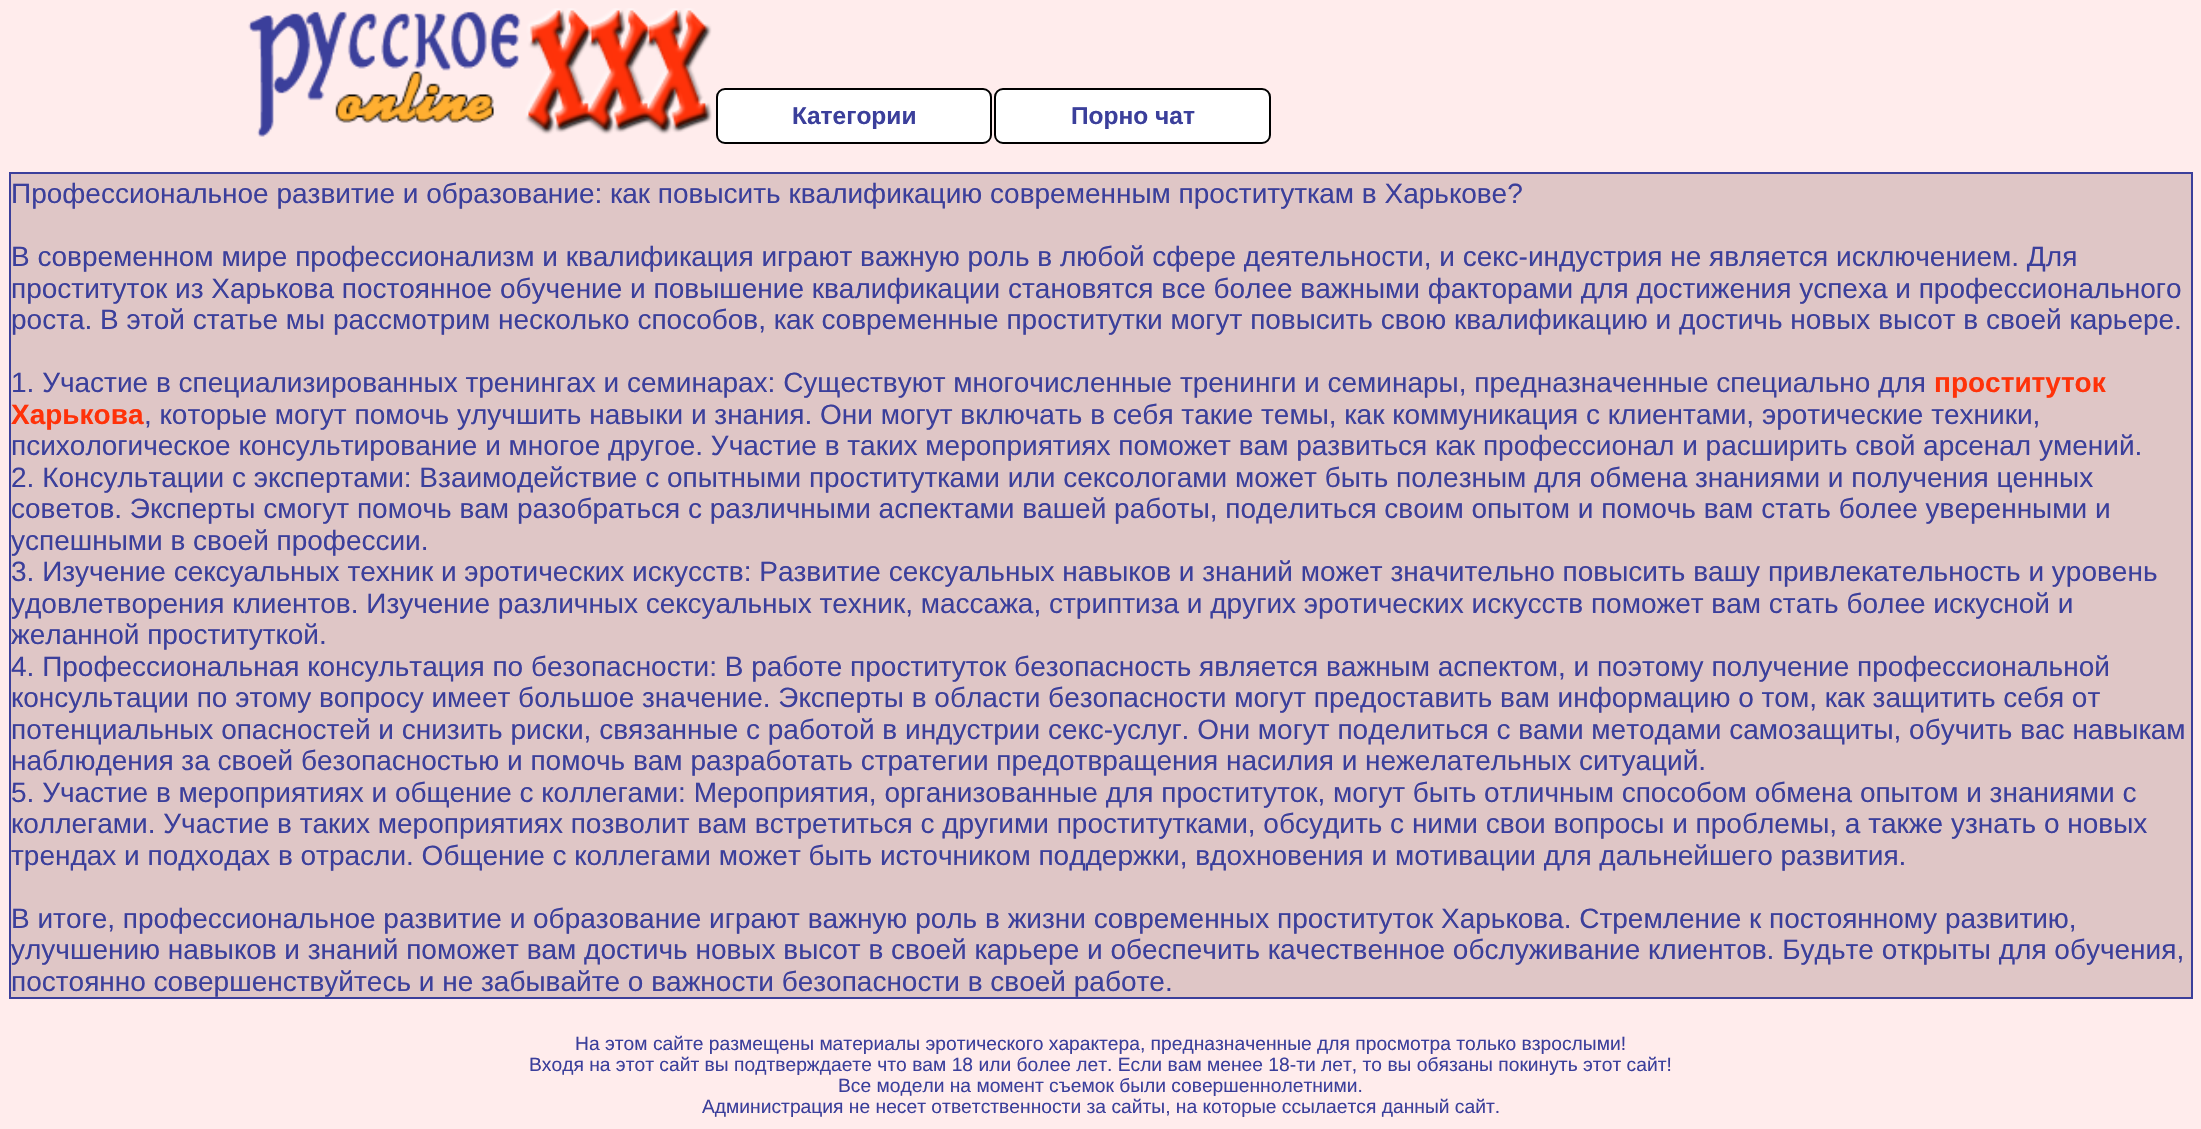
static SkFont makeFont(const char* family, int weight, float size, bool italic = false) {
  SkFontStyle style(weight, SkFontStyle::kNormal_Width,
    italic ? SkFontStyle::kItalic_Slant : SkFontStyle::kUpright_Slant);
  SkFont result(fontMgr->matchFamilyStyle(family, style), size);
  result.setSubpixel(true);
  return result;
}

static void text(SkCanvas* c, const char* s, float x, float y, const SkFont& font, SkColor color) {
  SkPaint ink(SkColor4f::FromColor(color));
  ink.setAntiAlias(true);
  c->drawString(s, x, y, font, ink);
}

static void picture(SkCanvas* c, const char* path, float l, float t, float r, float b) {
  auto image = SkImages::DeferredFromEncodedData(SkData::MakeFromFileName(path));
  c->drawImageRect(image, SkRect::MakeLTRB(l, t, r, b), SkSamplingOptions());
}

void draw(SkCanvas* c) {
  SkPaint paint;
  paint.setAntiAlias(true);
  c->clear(0xffffecec);
  picture(c, "img_01.png", 248, 8, 712, 137);
  paint.setColor(0xffffffff);
  c->drawRoundRect(SkRect::MakeLTRB(717, 89, 991, 143), 8, 8, paint);
  paint.setStyle(SkPaint::kStroke_Style);
  paint.setStrokeWidth(2);
  paint.setColor(0xff000000);
  c->drawRoundRect(SkRect::MakeLTRB(717, 89, 991, 143), 8, 8, paint);
  SkFont face1 = makeFont("Liberation Sans", 700, 24.5f);
  text(c, "Категории", 792, 124, face1, 0xff3b3f9b);
  paint.setStyle(SkPaint::kFill_Style);
  paint.setColor(0xffffffff);
  c->drawRoundRect(SkRect::MakeLTRB(995, 89, 1270, 143), 8, 8, paint);
  paint.setStyle(SkPaint::kStroke_Style);
  paint.setColor(0xff000000);
  c->drawRoundRect(SkRect::MakeLTRB(995, 89, 1270, 143), 8, 8, paint);
  text(c, "Порно чат", 1071, 124, face1, 0xff3b3f9b);
  paint.setStyle(SkPaint::kFill_Style);
  paint.setColor(0xffdfc6c6);
  c->drawRect(SkRect::MakeLTRB(10, 173, 2192, 998), paint);
  paint.setStyle(SkPaint::kStroke_Style);
  paint.setColor(0xff3b3f9b);
  c->drawRect(SkRect::MakeLTRB(10, 173, 2192, 998), paint);
  SkFont face2 = makeFont("Liberation Sans", 400, 28);
  text(c, "Профессиональное развитие и образование: как повысить квалификацию современным проституткам в Харькове?", 11, 203, face2, 0xff3b3f9b);
  text(c, "В современном мире профессионализм и квалификация играют важную роль в любой сфере деятельности, и секс-индустрия не является исключением. Для", 11, 266, face2, 0xff3b3f9b);
  text(c, "проституток из Харькова постоянное обучение и повышение квалификации становятся все более важными факторами для достижения успеха и профессионального", 11, 298, face2, 0xff3b3f9b);
  text(c, "роста. В этой статье мы рассмотрим несколько способов, как современные проститутки могут повысить свою квалификацию и достичь новых высот в своей карьере.", 11, 329, face2, 0xff3b3f9b);
  text(c, "1. Участие в специализированных тренингах и семинарах: Существуют многочисленные тренинги и семинары, предназначенные специально для", 11, 392, face2, 0xff3b3f9b);
  SkFont face3 = makeFont("Liberation Sans", 700, 28);
  text(c, "проституток", 1934, 392, face3, 0xffff3209);
  text(c, "Харькова", 11, 424, face3, 0xffff3209);
  text(c, ", которые могут помочь улучшить навыки и знания. Они могут включать в себя такие темы, как коммуникация с клиентами, эротические техники,", 144, 424, face2, 0xff3b3f9b);
  text(c, "психологическое консультирование и многое другое. Участие в таких мероприятиях поможет вам развиться как профессионал и расширить свой арсенал умений.", 11, 455, face2, 0xff3b3f9b);
  text(c, "2. Консультации с экспертами: Взаимодействие с опытными проститутками или сексологами может быть полезным для обмена знаниями и получения ценных", 11, 487, face2, 0xff3b3f9b);
  text(c, "советов. Эксперты смогут помочь вам разобраться с различными аспектами вашей работы, поделиться своим опытом и помочь вам стать более уверенными и", 11, 518, face2, 0xff3b3f9b);
  text(c, "успешными в своей профессии.", 11, 550, face2, 0xff3b3f9b);
  text(c, "3. Изучение сексуальных техник и эротических искусств: Развитие сексуальных навыков и знаний может значительно повысить вашу привлекательность и уровень", 11, 581, face2, 0xff3b3f9b);
  text(c, "удовлетворения клиентов. Изучение различных сексуальных техник, массажа, стриптиза и других эротических искусств поможет вам стать более искусной и", 11, 613, face2, 0xff3b3f9b);
  text(c, "желанной проституткой.", 11, 644, face2, 0xff3b3f9b);
  text(c, "4. Профессиональная консультация по безопасности: В работе проституток безопасность является важным аспектом, и поэтому получение профессиональной", 11, 676, face2, 0xff3b3f9b);
  text(c, "консультации по этому вопросу имеет большое значение. Эксперты в области безопасности могут предоставить вам информацию о том, как защитить себя от", 11, 707, face2, 0xff3b3f9b);
  text(c, "потенциальных опасностей и снизить риски, связанные с работой в индустрии секс-услуг. Они могут поделиться с вами методами самозащиты, обучить вас навыкам", 11, 739, face2, 0xff3b3f9b);
  text(c, "наблюдения за своей безопасностью и помочь вам разработать стратегии предотвращения насилия и нежелательных ситуаций.", 11, 770, face2, 0xff3b3f9b);
  text(c, "5. Участие в мероприятиях и общение с коллегами: Мероприятия, организованные для проституток, могут быть отличным способом обмена опытом и знаниями с", 11, 802, face2, 0xff3b3f9b);
  text(c, "коллегами. Участие в таких мероприятиях позволит вам встретиться с другими проститутками, обсудить с ними свои вопросы и проблемы, а также узнать о новых", 11, 833, face2, 0xff3b3f9b);
  text(c, "трендах и подходах в отрасли. Общение с коллегами может быть источником поддержки, вдохновения и мотивации для дальнейшего развития.", 11, 865, face2, 0xff3b3f9b);
  text(c, "В итоге, профессиональное развитие и образование играют важную роль в жизни современных проституток Харькова. Стремление к постоянному развитию,", 11, 928, face2, 0xff3b3f9b);
  text(c, "улучшению навыков и знаний поможет вам достичь новых высот в своей карьере и обеспечить качественное обслуживание клиентов. Будьте открыты для обучения,", 11, 959, face2, 0xff3b3f9b);
  text(c, "постоянно совершенствуйтесь и не забывайте о важности безопасности в своей работе.", 11, 991, face2, 0xff3b3f9b);
  SkFont face4 = makeFont("Liberation Sans", 400, 19.25f);
  text(c, "На этом сайте размещены материалы эротического характера, предназначенные для просмотра только взрослыми!", 575, 1050, face4, 0xff3b3f9b);
  text(c, "Входя на этот сайт вы подтверждаете что вам 18 или более лет. Если вам менее 18-ти лет, то вы обязаны покинуть этот сайт!", 529, 1071, face4, 0xff3b3f9b);
  text(c, "Все модели на момент съемок были совершеннолетними.", 838, 1092, face4, 0xff3b3f9b);
  text(c, "Администрация не несет ответственности за сайты, на которые ссылается данный сайт.", 702, 1113, face4, 0xff3b3f9b);
}
